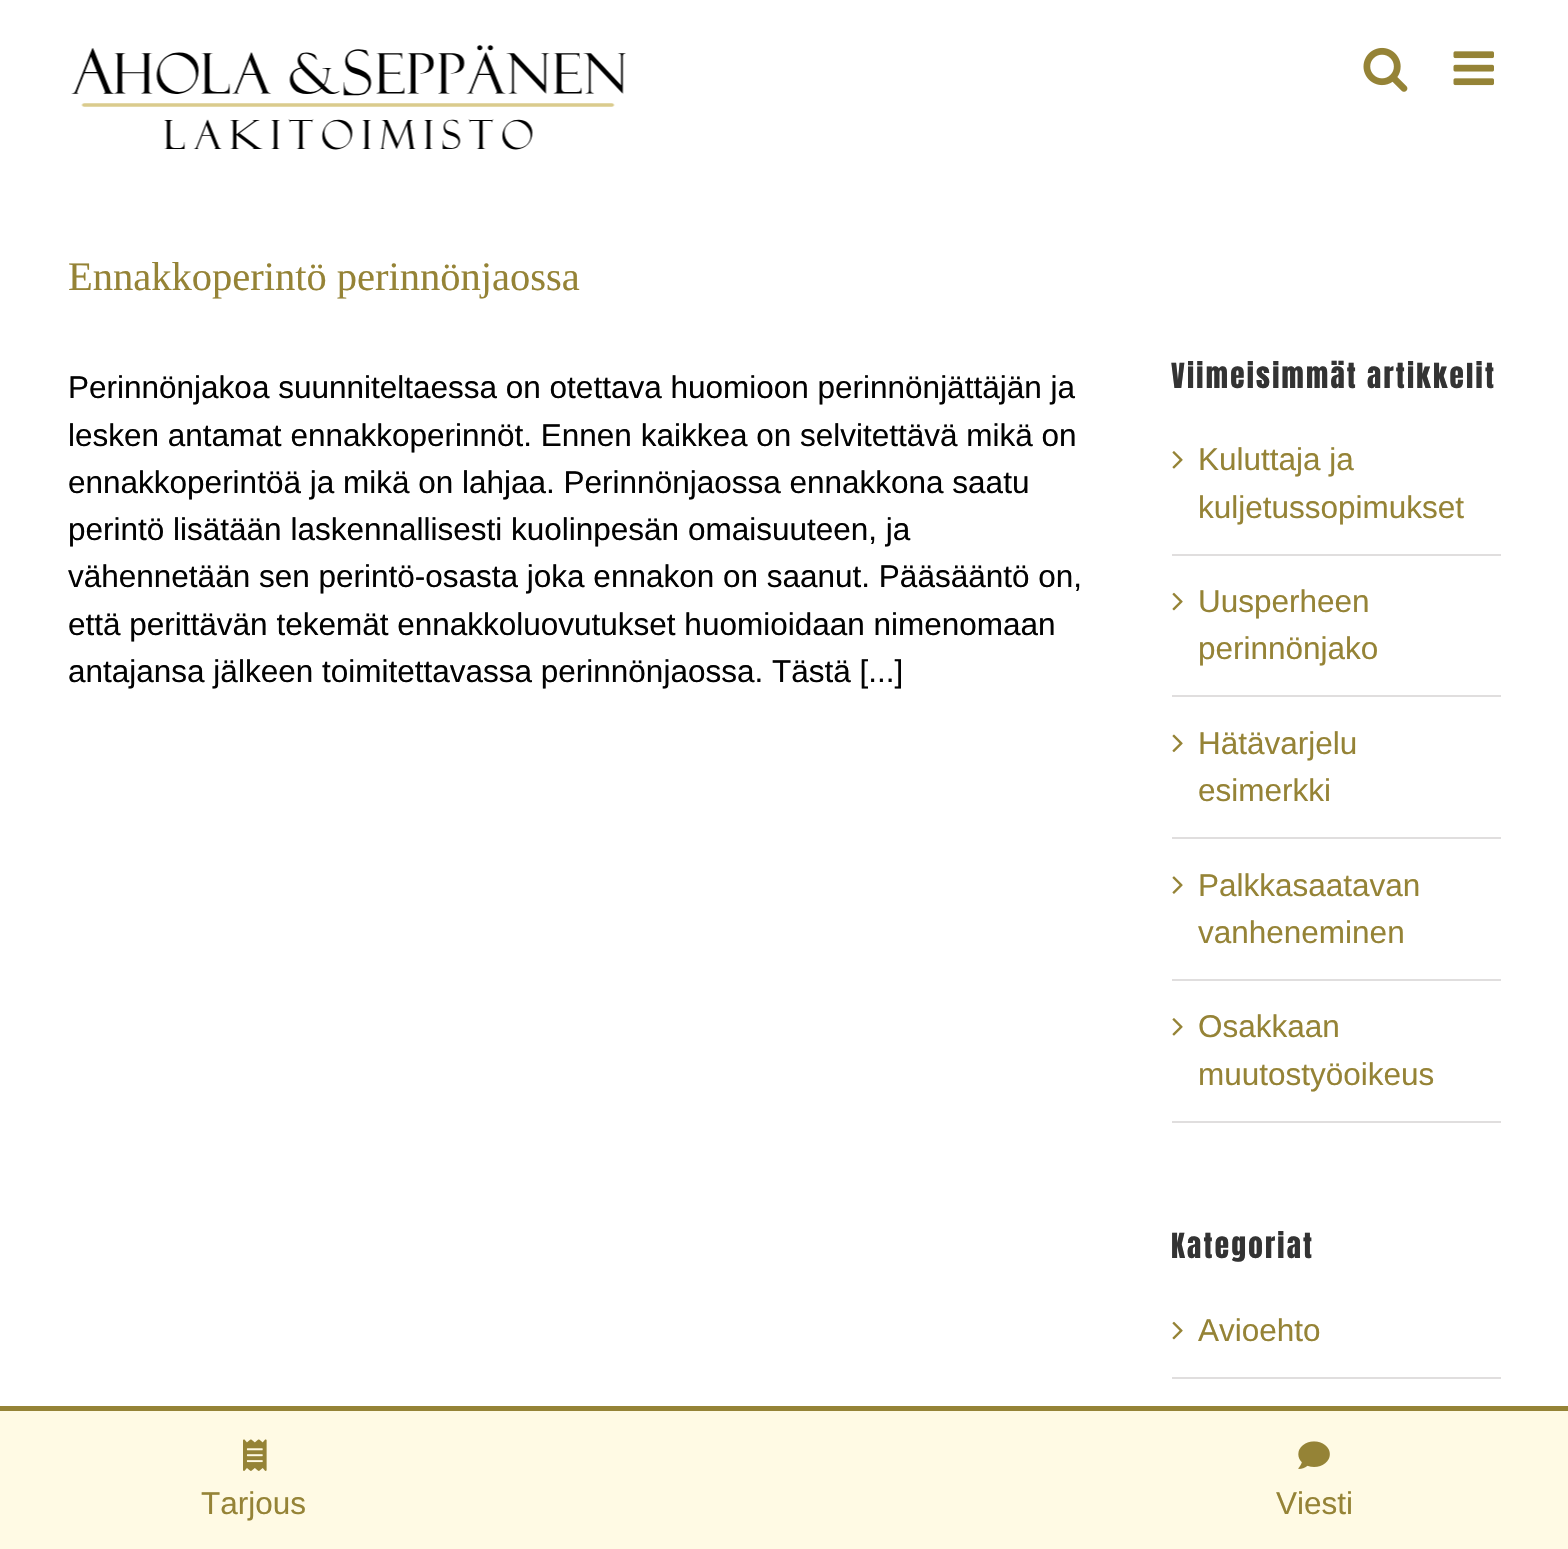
static SkFont makeFont(const char* family, int weight, float size, bool italic = false) {
  SkFontStyle style(weight, SkFontStyle::kNormal_Width,
    italic ? SkFontStyle::kItalic_Slant : SkFontStyle::kUpright_Slant);
  SkFont result(fontMgr->matchFamilyStyle(family, style), size);
  result.setSubpixel(true);
  return result;
}

static void text(SkCanvas* c, const char* s, float x, float y, const SkFont& font, SkColor color) {
  SkPaint ink(SkColor4f::FromColor(color));
  ink.setAntiAlias(true);
  c->drawString(s, x, y, font, ink);
}

static void spacedText(SkCanvas* c, const char* s, float x, float y, const SkFont& font, const SkPaint& ink, float letter, float word) {
  std::vector<SkGlyphID> glyphs(font.countText(s, strlen(s), SkTextEncoding::kUTF8));
  std::vector<float> xs(glyphs.size());
  font.textToGlyphs(s, strlen(s), SkTextEncoding::kUTF8, glyphs);
  font.getXPos(glyphs, xs, x);
  float extra = 0;
  for (size_t i = 0; i < glyphs.size(); i++) {
    xs[i] += extra;
    extra += letter + word * (glyphs[i] == font.unicharToGlyph(' '));
  }
  c->drawTextBlob(SkTextBlob::MakeFromPosHGlyphs(glyphs, xs, y, font), 0, 0, ink);
}

static void box(SkCanvas* c, float l, float t, float r, float b, SkColor color) {
  SkPaint ink(SkColor4f::FromColor(color));
  ink.setAntiAlias(true);
  c->drawRect(SkRect::MakeLTRB(l, t, r, b), ink);
}

static void picture(SkCanvas* c, const char* path, float l, float t, float r, float b) {
  auto image = SkImages::DeferredFromEncodedData(SkData::MakeFromFileName(path));
  c->drawImageRect(image, SkRect::MakeLTRB(l, t, r, b), SkSamplingOptions());
}

void draw(SkCanvas* c) {
  SkPaint paint;
  paint.setAntiAlias(true);
  c->clear(0xffffffff);
  picture(c, "img_01.png", 71, 45, 626, 150);
  picture(c, "img_02.png", 1363, 47, 1408, 92);
  picture(c, "img_03.png", 1453, 51, 1494, 86);
  SkFont face1 = makeFont("Liberation Serif", 400, 40.5f);
  text(c, "Ennakkoperintö perinnönjaossa", 68, 290, face1, 0xff958336);
  SkFont face2 = makeFont("Liberation Sans", 400, 31.5f);
  text(c, "Perinnönjakoa suunniteltaessa on otettava huomioon perinnönjättäjän ja", 68, 398, face2, 0xff020202);
  text(c, "lesken antamat ennakkoperinnöt. Ennen kaikkea on selvitettävä mikä on", 68, 446, face2, 0xff020202);
  text(c, "ennakkoperintöä ja mikä on lahjaa. Perinnönjaossa ennakkona saatu", 68, 493, face2, 0xff020202);
  text(c, "perintö lisätään laskennallisesti kuolinpesän omaisuuteen, ja", 68, 540, face2, 0xff020202);
  text(c, "vähennetään sen perintö-osasta joka ennakon on saanut. Pääsääntö on,", 68, 587, face2, 0xff020202);
  text(c, "että perittävän tekemät ennakkoluovutukset huomioidaan nimenomaan", 68, 635, face2, 0xff020202);
  text(c, "antajansa jälkeen toimitettavassa perinnönjaossa. Tästä [...]", 68, 682, face2, 0xff020202);
  SkFont face3 = makeFont("Anton", 400, 29.25f);
  paint.setColor(0xff333333);
  spacedText(c, "Viimeisimmät artikkelit", 1171, 388, face3, paint, 2.25f, 0);
  box(c, 1172, 554, 1501, 556, 0xffe0dede);
  picture(c, "img_04.png", 1172, 451, 1183, 469);
  text(c, "Kuluttaja ja", 1198, 470, face2, 0xff958336);
  text(c, "kuljetussopimukset", 1198, 518, face2, 0xff958336);
  box(c, 1172, 695, 1501, 697, 0xffe0dede);
  picture(c, "img_05.png", 1172, 592, 1183, 611);
  text(c, "Uusperheen", 1198, 612, face2, 0xff958336);
  text(c, "perinnönjako", 1198, 659, face2, 0xff958336);
  box(c, 1172, 837, 1501, 839, 0xffe0dede);
  picture(c, "img_06.png", 1172, 734, 1183, 753);
  text(c, "Hätävarjelu", 1198, 754, face2, 0xff958336);
  text(c, "esimerkki", 1198, 801, face2, 0xff958336);
  box(c, 1172, 979, 1501, 981, 0xffe0dede);
  picture(c, "img_07.png", 1172, 876, 1183, 894);
  text(c, "Palkkasaatavan", 1198, 896, face2, 0xff958336);
  text(c, "vanheneminen", 1198, 943, face2, 0xff958336);
  box(c, 1172, 1121, 1501, 1123, 0xffe0dede);
  picture(c, "img_04.png", 1172, 1018, 1183, 1036);
  text(c, "Osakkaan", 1198, 1037, face2, 0xff958336);
  text(c, "muutostyöoikeus", 1198, 1085, face2, 0xff958336);
  spacedText(c, "Kategoriat", 1171, 1258, face3, paint, 2.25f, 0);
  box(c, 1172, 1377, 1501, 1379, 0xffe0dede);
  picture(c, "img_05.png", 1172, 1321, 1183, 1340);
  text(c, "Avioehto", 1198, 1341, face2, 0xff958336);
  box(c, 0, 1406, 1568, 1411, 0xff958336);
  box(c, 0, 1411, 1568, 1549, 0xfffffae4);
  picture(c, "img_08.png", 243, 1439, 267, 1471);
  text(c, "Tarjous", 201, 1514, face2, 0xff958336);
  picture(c, "img_09.png", 1298, 1441, 1330, 1469);
  text(c, "Viesti", 1276, 1514, face2, 0xff958336);
}
